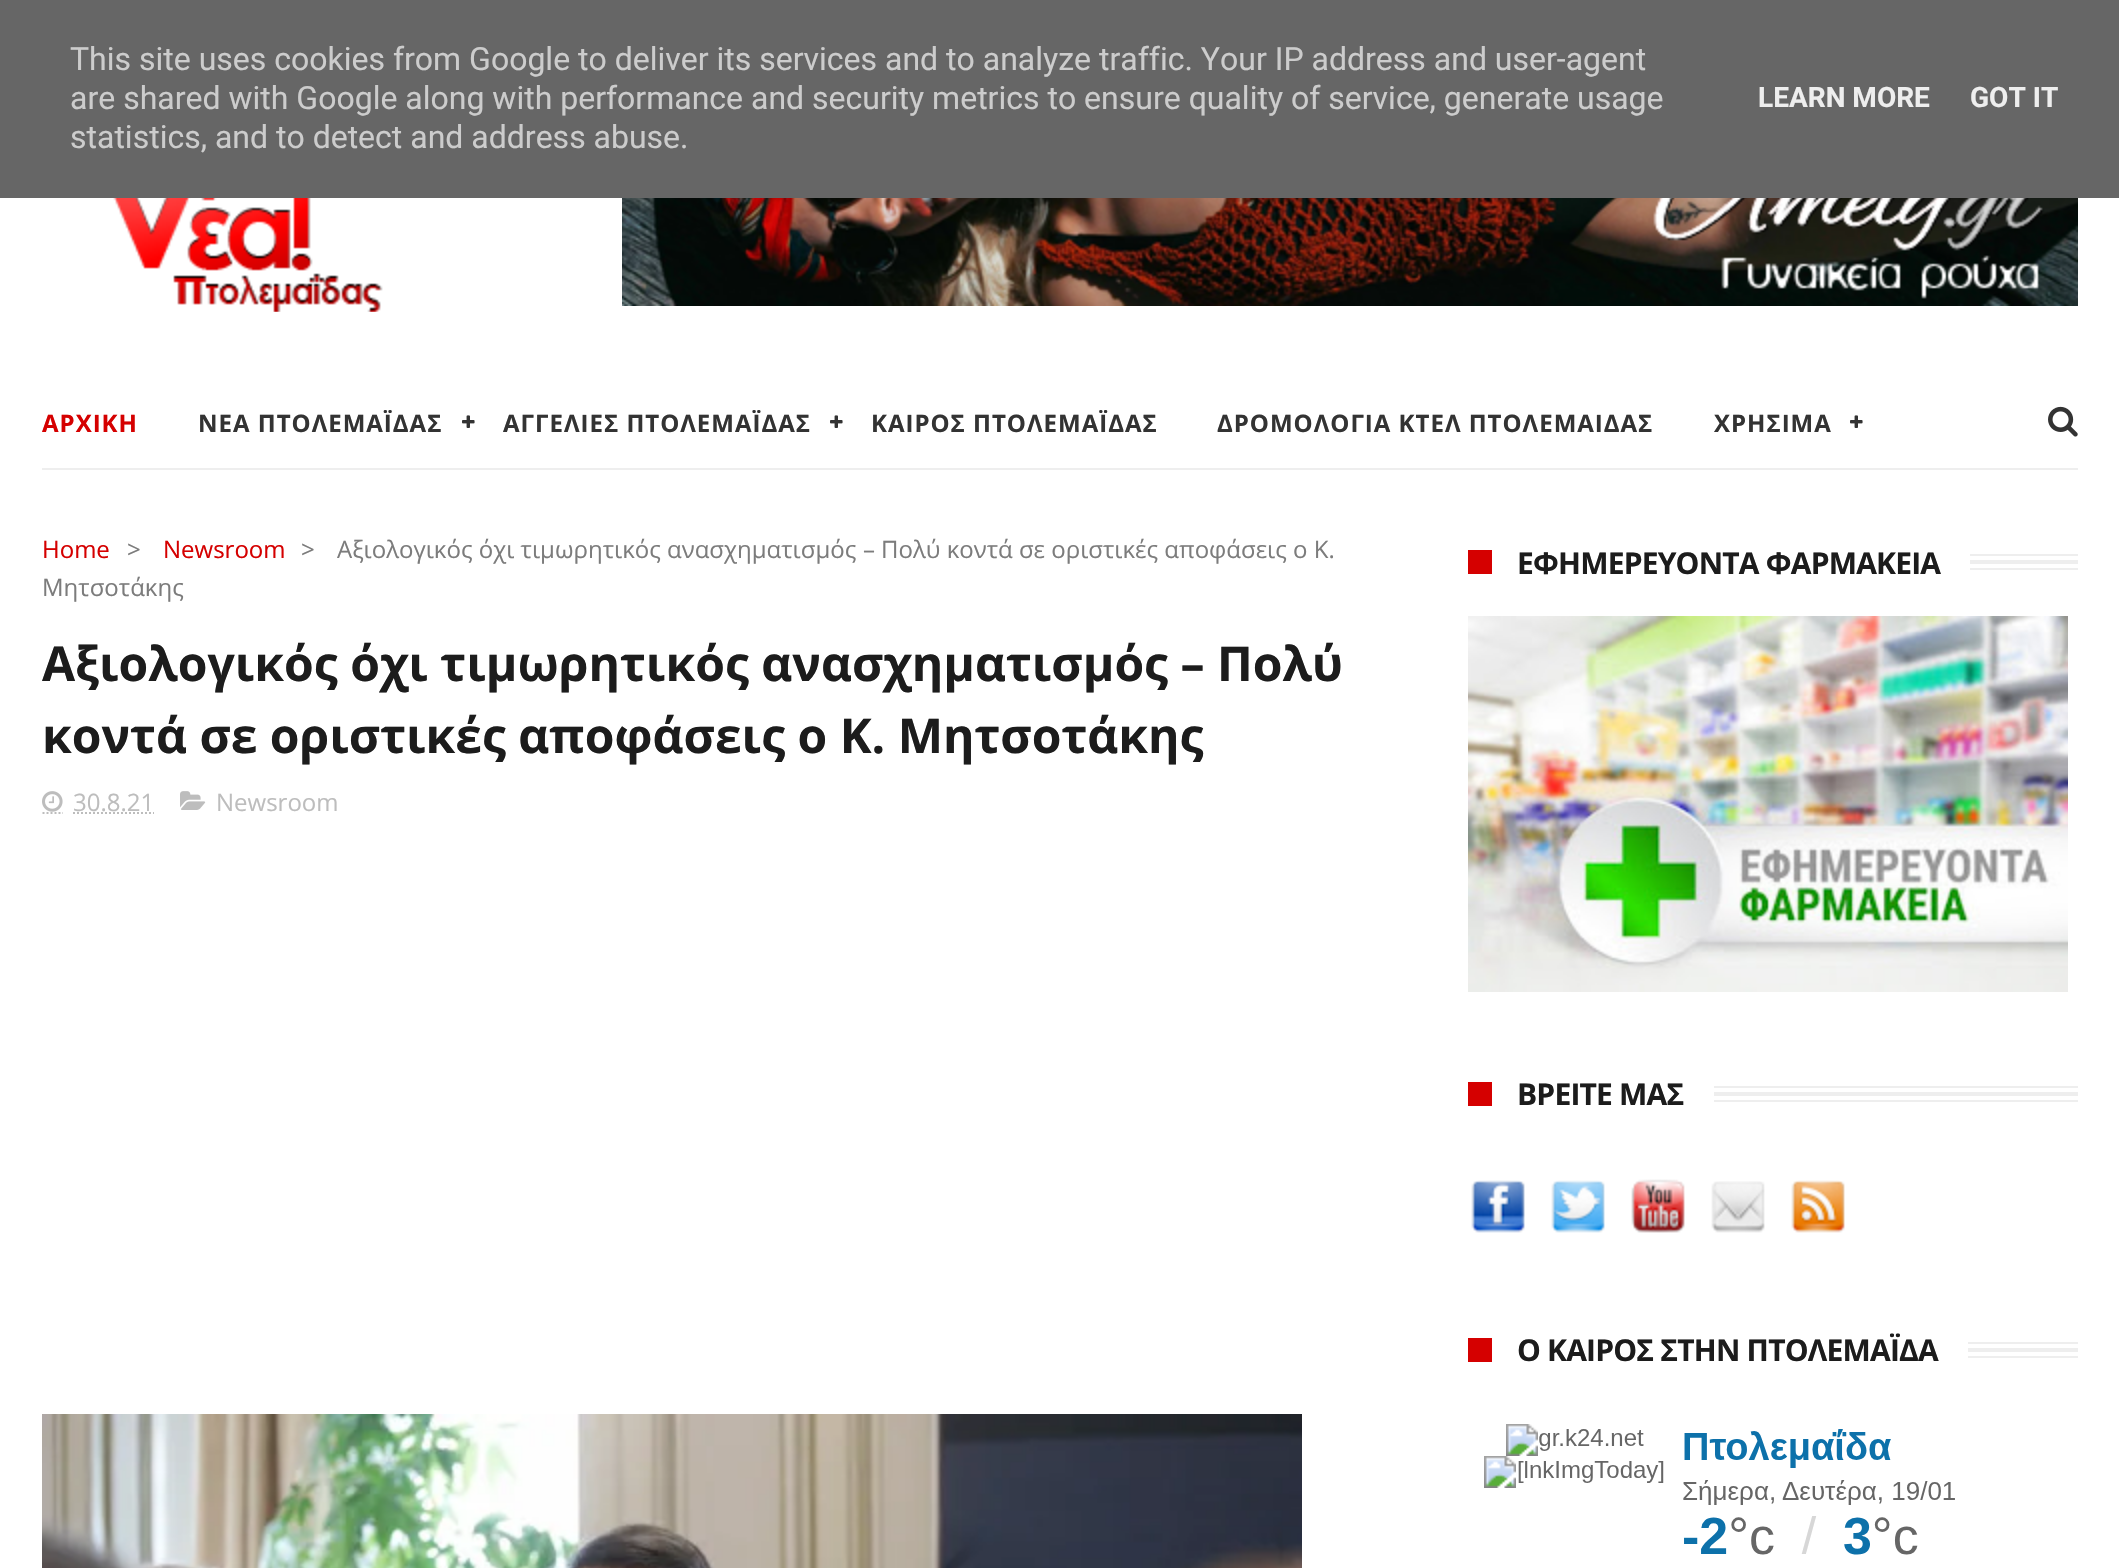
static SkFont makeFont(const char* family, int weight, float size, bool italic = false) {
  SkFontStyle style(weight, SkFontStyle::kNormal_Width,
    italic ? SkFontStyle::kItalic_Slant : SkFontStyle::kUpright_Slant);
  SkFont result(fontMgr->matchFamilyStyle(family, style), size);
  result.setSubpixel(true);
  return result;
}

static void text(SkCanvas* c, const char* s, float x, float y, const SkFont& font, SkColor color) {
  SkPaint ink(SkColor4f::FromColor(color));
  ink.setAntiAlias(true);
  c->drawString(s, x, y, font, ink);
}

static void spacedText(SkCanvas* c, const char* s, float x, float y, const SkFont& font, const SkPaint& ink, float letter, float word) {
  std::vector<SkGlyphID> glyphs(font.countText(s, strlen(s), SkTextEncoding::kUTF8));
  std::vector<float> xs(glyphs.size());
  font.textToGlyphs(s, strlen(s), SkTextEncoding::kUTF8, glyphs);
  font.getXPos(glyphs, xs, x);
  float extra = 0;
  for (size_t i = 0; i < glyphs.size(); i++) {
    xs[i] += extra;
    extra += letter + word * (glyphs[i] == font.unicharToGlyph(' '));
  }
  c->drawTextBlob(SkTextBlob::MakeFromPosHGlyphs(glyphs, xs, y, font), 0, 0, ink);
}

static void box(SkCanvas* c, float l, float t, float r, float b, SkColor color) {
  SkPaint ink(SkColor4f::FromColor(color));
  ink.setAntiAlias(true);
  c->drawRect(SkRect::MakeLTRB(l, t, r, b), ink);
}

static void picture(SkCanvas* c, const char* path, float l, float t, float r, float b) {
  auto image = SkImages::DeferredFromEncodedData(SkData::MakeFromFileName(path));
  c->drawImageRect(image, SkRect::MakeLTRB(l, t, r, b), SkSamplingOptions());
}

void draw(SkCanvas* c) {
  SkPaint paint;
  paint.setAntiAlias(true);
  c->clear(0xffffffff);
  box(c, 0, 0, 2119, 198, 0xff666666);
  SkFont face1 = makeFont("Roboto", 400, 32);
  text(c, "This site uses cookies from Google to deliver its services and to analyze traffic. Your IP address and user-agent", 70, 70, face1, 0xffcccccc);
  text(c, "are shared with Google along with performance and security metrics to ensure quality of service, generate usage", 70, 109, face1, 0xffcccccc);
  text(c, "statistics, and to detect and address abuse.", 70, 148, face1, 0xffcccccc);
  SkFont face2 = makeFont("Roboto", 700, 28);
  text(c, "LEARN MORE", 1758, 107, face2, 0xffeeeeee);
  text(c, "GOT IT", 1970, 107, face2, 0xffeeeeee);
  picture(c, "img_01.png", 112, 198, 383, 312);
  picture(c, "img_02.png", 622, 198, 2078, 306);
  box(c, 42, 468, 2078, 470, 0xffeeeeee);
  SkFont face3 = makeFont("Open Sans", 700, 24);
  paint.setColor(0xffd50000);
  spacedText(c, "ΑΡΧΙΚΗ", 42, 432, face3, paint, 1, 0);
  paint.setColor(0xff333333);
  spacedText(c, "ΝΕΑ ΠΤΟΛΕΜΑΪΔΑΣ", 198, 432, face3, paint, 1, 0);
  picture(c, "img_03.png", 462, 415, 475, 428);
  spacedText(c, "ΑΓΓΕΛΙΕΣ ΠΤΟΛΕΜΑΪΔΑΣ", 503, 432, face3, paint, 1, 0);
  picture(c, "img_03.png", 830, 415, 843, 428);
  spacedText(c, "ΚΑΙΡΟΣ ΠΤΟΛΕΜΑΪΔΑΣ", 871, 432, face3, paint, 1, 0);
  spacedText(c, "ΔΡΟΜΟΛΟΓΙΑ ΚΤΕΛ ΠΤΟΛΕΜΑΙΔΑΣ", 1217, 432, face3, paint, 1, 0);
  spacedText(c, "ΧΡΗΣΙΜΑ", 1714, 432, face3, paint, 1, 0);
  picture(c, "img_03.png", 1850, 415, 1863, 428);
  picture(c, "img_04.png", 2048, 406, 2078, 437);
  SkFont face4 = makeFont("Open Sans", 400, 24);
  text(c, "Home", 42, 558, face4, 0xffd50000);
  text(c, ">", 127, 558, face4, 0xff7c7c7c);
  text(c, "Newsroom", 163, 558, face4, 0xffd50000);
  text(c, ">", 301, 558, face4, 0xff7c7c7c);
  text(c, "Αξιολογικός όχι τιμωρητικός ανασχηματισμός", 337, 558, face4, 0xff7c7c7c);
  SkFont face5 = makeFont("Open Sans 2", 400, 24);
  text(c, "–", 863, 558, face5, 0xff7c7c7c);
  text(c, "Πολύ κοντά σε οριστικές αποφάσεις ο Κ.", 881, 558, face4, 0xff7c7c7c);
  text(c, "Μητσοτάκης", 42, 596, face4, 0xff7c7c7c);
  SkFont face6 = makeFont("Open Sans", 700, 48);
  text(c, "Αξιολογικός όχι τιμωρητικός ανασχηματισμός – Πολύ", 42, 681, face6, 0xff1c1c1c);
  text(c, "κοντά σε οριστικές αποφάσεις ο Κ. Μητσοτάκης", 42, 753, face6, 0xff1c1c1c);
  picture(c, "img_05.png", 42, 791, 63, 812);
  text(c, "30.8.21", 73, 811, face4, 0xffbdbdbd);
  paint.setStyle(SkPaint::kStroke_Style);
  paint.setStrokeWidth(2);
  paint.setColor(0xffbdbdbd);
  paint.setPathEffect(SkDashPathEffect::Make({{2, 2}}, 0));
  c->drawPath(SkPathBuilder().moveTo(42.5f, 813).lineTo(63, 813).detach(), paint);
  paint.setPathEffect(nullptr);
  paint.setPathEffect(SkDashPathEffect::Make({{2, 2}}, 0));
  c->drawPath(SkPathBuilder().moveTo(73, 813).lineTo(154, 813).detach(), paint);
  paint.setPathEffect(nullptr);
  picture(c, "img_06.png", 180, 791, 206, 810);
  text(c, "Newsroom", 216, 811, face4, 0xffbdbdbd);
  picture(c, "img_07.png", 42, 1414, 1302, 1568);
  c->save();
  c->clipRect(SkRect::MakeLTRB(1468, 530, 2078, 1002));
  paint.setColor(0xffeeeeee);
  c->drawRect(SkRect::MakeLTRB(1469, 555, 2093, 569), paint);
  c->restore();
  box(c, 1468, 554, 1970, 570, 0xffffffff);
  box(c, 1468, 550, 1492, 574, 0xffd50000);
  SkFont face7 = makeFont("Open Sans", 700, 30);
  paint.setStyle(SkPaint::kFill_Style);
  paint.setColor(0xff1c1c1c);
  spacedText(c, "ΕΦΗΜΕΡΕΥΟΝΤΑ ΦΑΡΜΑΚΕΙΑ", 1517, 574, face7, paint, -0.8f, 0);
  box(c, 1970, 560, 2078, 564, 0xffeeeeee);
  picture(c, "img_08.png", 1468, 616, 2068, 992);
  c->save();
  c->clipRect(SkRect::MakeLTRB(1468, 1062, 2078, 1258));
  paint.setStyle(SkPaint::kStroke_Style);
  paint.setColor(0xffeeeeee);
  c->drawRect(SkRect::MakeLTRB(1469, 1087, 2093, 1101), paint);
  c->restore();
  box(c, 1468, 1086, 1714, 1102, 0xffffffff);
  box(c, 1468, 1082, 1492, 1106, 0xffd50000);
  paint.setStyle(SkPaint::kFill_Style);
  paint.setColor(0xff1c1c1c);
  spacedText(c, "ΒΡΕΙΤΕ ΜΑΣ", 1517, 1105, face7, paint, -0.8f, 0);
  box(c, 1714, 1092, 2078, 1096, 0xffeeeeee);
  picture(c, "img_09.png", 1471, 1180, 1525, 1233);
  picture(c, "img_10.png", 1551, 1180, 1605, 1233);
  picture(c, "img_11.png", 1631, 1179, 1685, 1233);
  picture(c, "img_12.png", 1711, 1181, 1765, 1233);
  picture(c, "img_13.png", 1791, 1180, 1845, 1233);
  c->save();
  c->clipRect(SkRect::MakeLTRB(1468, 1318, 2078, 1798));
  paint.setStyle(SkPaint::kStroke_Style);
  paint.setColor(0xffeeeeee);
  c->drawRect(SkRect::MakeLTRB(1469, 1343, 2093, 1357), paint);
  c->restore();
  box(c, 1468, 1342, 1968, 1358, 0xffffffff);
  box(c, 1468, 1338, 1492, 1362, 0xffd50000);
  paint.setStyle(SkPaint::kFill_Style);
  paint.setColor(0xff1c1c1c);
  spacedText(c, "Ο ΚΑΙΡΟΣ ΣΤΗΝ ΠΤΟΛΕΜΑΪΔΑ", 1517, 1361, face7, paint, -0.8f, 0);
  box(c, 1968, 1348, 2078, 1352, 0xffeeeeee);
  picture(c, "img_14.png", 1484, 1424, 1955, 1555);
}
